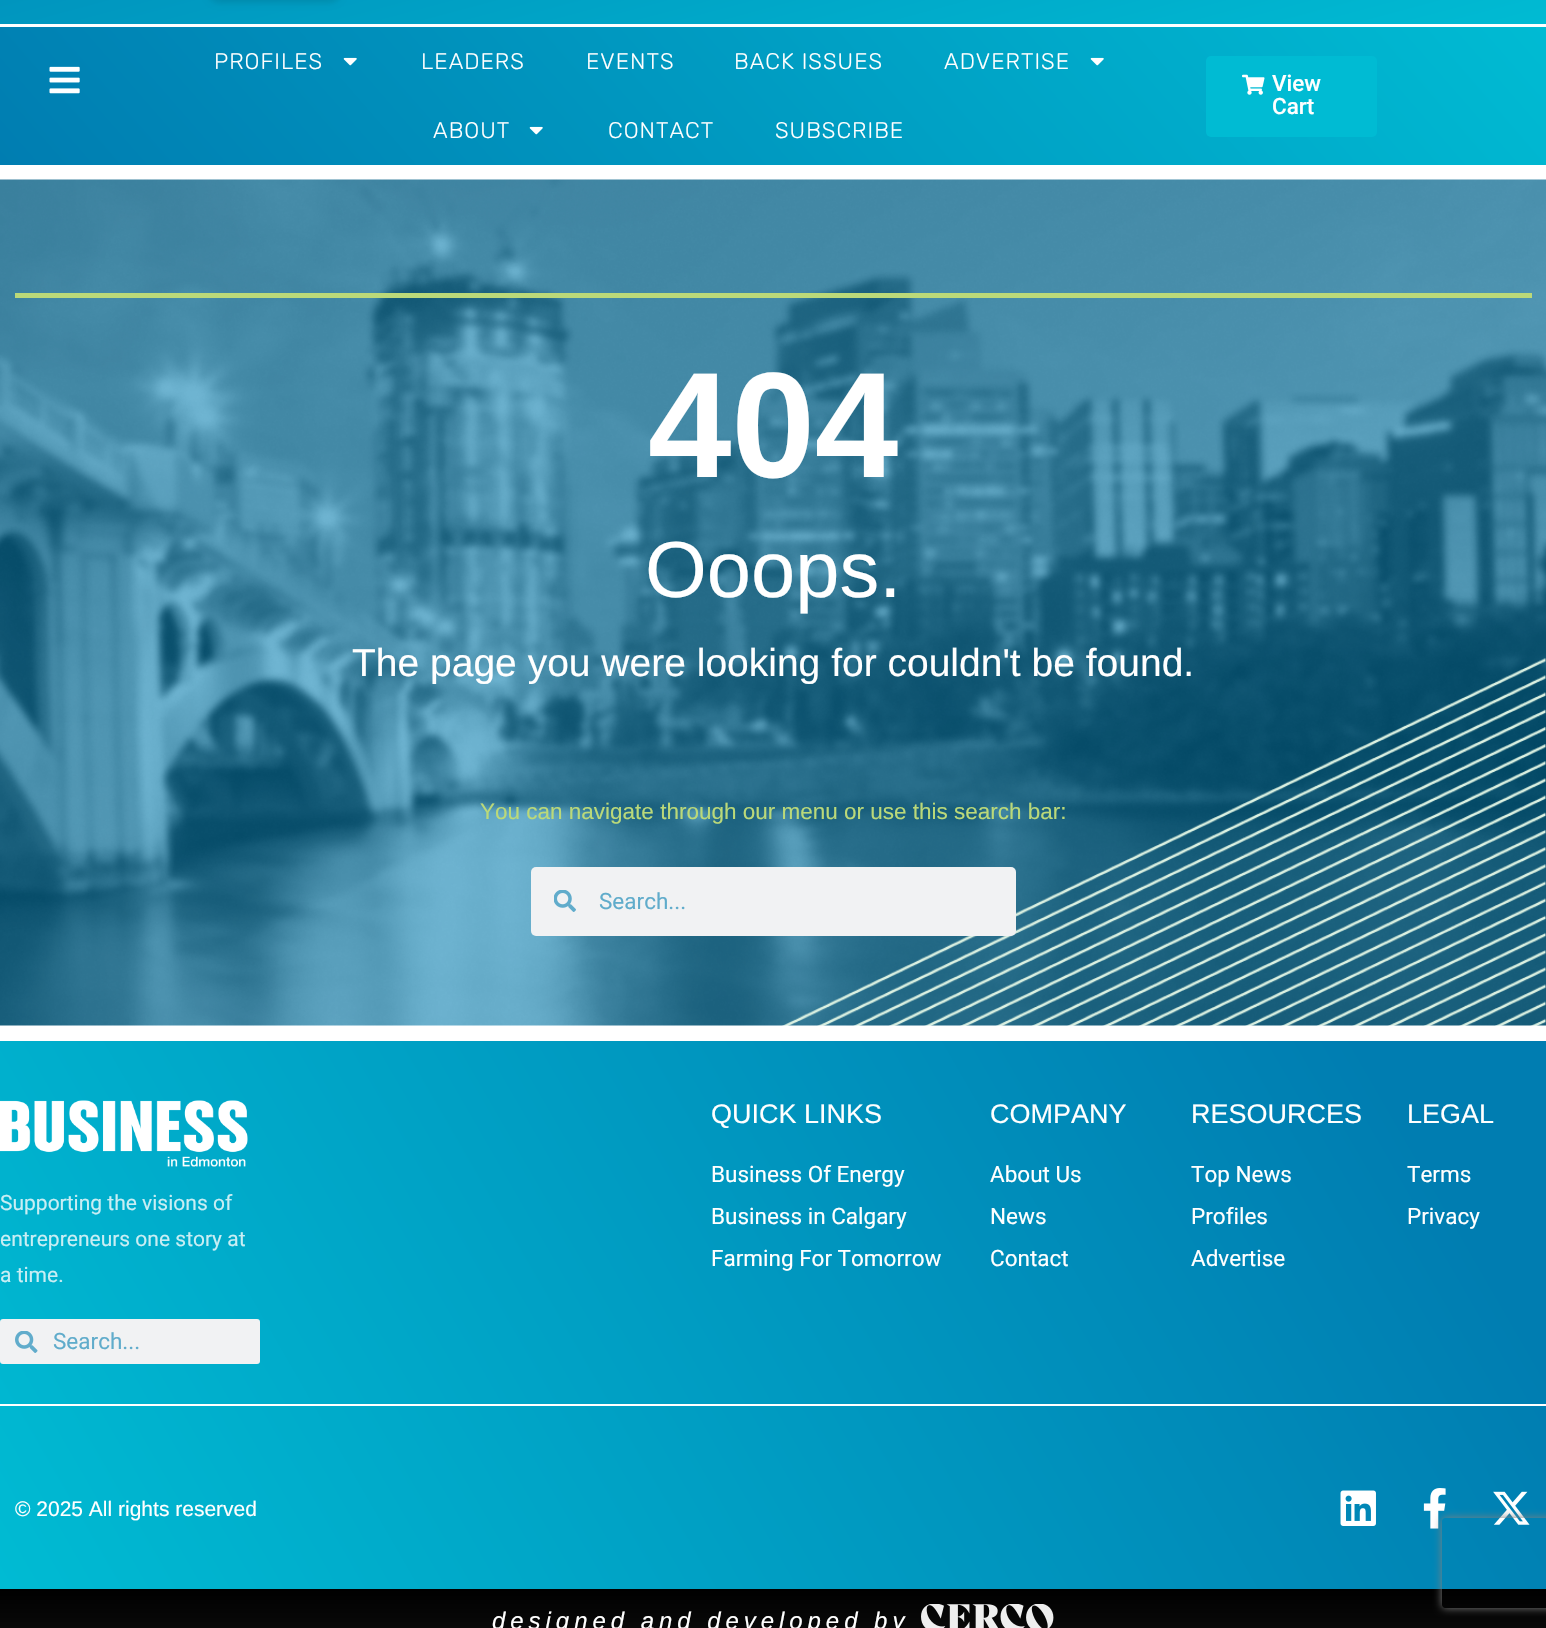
static SkFont makeFont(const char* family, int weight, float size, bool italic = false) {
  SkFontStyle style(weight, SkFontStyle::kNormal_Width,
    italic ? SkFontStyle::kItalic_Slant : SkFontStyle::kUpright_Slant);
  SkFont result(fontMgr->matchFamilyStyle(family, style), size);
  result.setSubpixel(true);
  return result;
}

static void text(SkCanvas* c, const char* s, float x, float y, const SkFont& font, SkColor color) {
  SkPaint ink(SkColor4f::FromColor(color));
  ink.setAntiAlias(true);
  c->drawString(s, x, y, font, ink);
}

static void spacedText(SkCanvas* c, const char* s, float x, float y, const SkFont& font, const SkPaint& ink, float letter, float word) {
  std::vector<SkGlyphID> glyphs(font.countText(s, strlen(s), SkTextEncoding::kUTF8));
  std::vector<float> xs(glyphs.size());
  font.textToGlyphs(s, strlen(s), SkTextEncoding::kUTF8, glyphs);
  font.getXPos(glyphs, xs, x);
  float extra = 0;
  for (size_t i = 0; i < glyphs.size(); i++) {
    xs[i] += extra;
    extra += letter + word * (glyphs[i] == font.unicharToGlyph(' '));
  }
  c->drawTextBlob(SkTextBlob::MakeFromPosHGlyphs(glyphs, xs, y, font), 0, 0, ink);
}

static void box(SkCanvas* c, float l, float t, float r, float b, SkColor color) {
  SkPaint ink(SkColor4f::FromColor(color));
  ink.setAntiAlias(true);
  c->drawRect(SkRect::MakeLTRB(l, t, r, b), ink);
}

static void roundBox(SkCanvas* c, float l, float t, float r, float b, float radius, SkColor color) {
  SkPaint ink(SkColor4f::FromColor(color));
  ink.setAntiAlias(true);
  c->drawRoundRect(SkRect::MakeLTRB(l, t, r, b), radius, radius, ink);
}

static void picture(SkCanvas* c, const char* path, float l, float t, float r, float b) {
  auto image = SkImages::DeferredFromEncodedData(SkData::MakeFromFileName(path));
  c->drawImageRect(image, SkRect::MakeLTRB(l, t, r, b), SkSamplingOptions());
}

void draw(SkCanvas* c) {
  SkPaint paint;
  paint.setAntiAlias(true);
  c->clear(0xffffffff);
  {
    const SkColor colors[] = {0xff007db1, 0xff00bbd3};
    const float stops[] = {0, 1};
    const SkPoint ends[] = {{684, -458}, {862, 207}};
    paint.setShader(SkGradientShader::MakeLinear(ends, colors, stops, 2, SkTileMode::kClamp));
    paint.setAlpha(255);
  }
  c->drawRect(SkRect::MakeLTRB(0, 0, 1546, 24), paint);
  paint.setShader(nullptr);
  paint.setColor(0x1a000000);
  paint.setMaskFilter(SkMaskFilter::MakeBlur(kNormal_SkBlurStyle, 3));
  c->drawRoundRect(SkRect::MakeLTRB(207, -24, 342, 3), 15, 15, paint);
  paint.setMaskFilter(nullptr);
  {
    const SkColor colors[] = {0xff007db1, 0xff00bbd3};
    const float stops[] = {0, 1};
    const SkPoint ends[] = {{299, 509}, {1248, -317}};
    paint.setShader(SkGradientShader::MakeLinear(ends, colors, stops, 2, SkTileMode::kClamp));
    paint.setAlpha(255);
  }
  c->drawRect(SkRect::MakeLTRB(0, 27, 1546, 165), paint);
  picture(c, "img_01.png", 49, 66, 80, 94);
  SkFont face1 = makeFont("Rubik", 300, 22.5f);
  paint.setShader(nullptr);
  paint.setColor(0xffffffff);
  spacedText(c, "PROFILES", 214, 69, face1, paint, 1, 0);
  picture(c, "img_02.png", 343, 57, 357, 66);
  spacedText(c, "LEADERS", 421, 69, face1, paint, 1, 0);
  spacedText(c, "EVENTS", 586, 69, face1, paint, 1, 0);
  spacedText(c, "BACK ISSUES", 734, 69, face1, paint, 1, 0);
  spacedText(c, "ADVERTISE", 944, 69, face1, paint, 1, 0);
  picture(c, "img_03.png", 1090, 57, 1104, 66);
  spacedText(c, "ABOUT", 433, 138, face1, paint, 1, 0);
  picture(c, "img_04.png", 529, 126, 543, 135);
  spacedText(c, "CONTACT", 608, 138, face1, paint, 1, 0);
  spacedText(c, "SUBSCRIBE", 775, 138, face1, paint, 1, 0);
  roundBox(c, 1206, 56, 1377, 137, 5, 0xff00bbd3);
  picture(c, "img_05.png", 1242, 74, 1265, 95);
  SkFont face2 = makeFont("Roboto", 500, 22.5f);
  text(c, "View", 1272, 91, face2, 0xffffffff);
  text(c, "Cart", 1272, 114, face2, 0xffffffff);
  picture(c, "img_06.png", 0, 179, 1546, 1026);
  box(c, 15, 293, 1532, 298, 0xffbbd979);
  SkFont face3 = makeFont("Liberation Sans", 700, 150);
  text(c, "404", 648, 477, face3, 0xffffffff);
  SkFont face4 = makeFont("Liberation Sans", 400, 79.5f);
  text(c, "Ooops.", 645, 597, face4, 0xffffffff);
  SkFont face5 = makeFont("Liberation Sans", 400, 39);
  text(c, "The page you were looking for couldn't be found.", 352, 676, face5, 0xffffffff);
  SkFont face6 = makeFont("Liberation Sans", 400, 22.5f);
  text(c, "You can navigate through our menu or use this search bar:", 480, 819, face6, 0xffbbd979);
  roundBox(c, 531, 867, 1016, 936, 5, 0xfff1f2f3);
  picture(c, "img_07.png", 554, 890, 576, 912);
  SkFont face7 = makeFont("Roboto", 400, 22.5f);
  text(c, "Search...", 599, 909, face7, 0xff60accb);
  {
    const SkColor colors[] = {0xff00bbd3, 0xff007db1};
    const float stops[] = {0, 0.9f};
    const SkPoint ends[] = {{75, 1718}, {1472, 911}};
    paint.setShader(SkGradientShader::MakeLinear(ends, colors, stops, 2, SkTileMode::kClamp));
    paint.setAlpha(255);
  }
  c->drawRect(SkRect::MakeLTRB(0, 1041, 1546, 1589), paint);
  SkFont face8 = makeFont("Liberation Sans", 400, 27);
  text(c, "QUICK LINKS", 711, 1123, face8, 0xffffffff);
  text(c, "Business Of Energy", 711, 1182, face7, 0xffffffff);
  text(c, "Business in Calgary", 711, 1224, face7, 0xffffffff);
  text(c, "Farming For Tomorrow", 711, 1266, face7, 0xffffffff);
  text(c, "COMPANY", 990, 1123, face8, 0xffffffff);
  text(c, "About Us", 990, 1182, face7, 0xffffffff);
  text(c, "News", 990, 1224, face7, 0xffffffff);
  text(c, "Contact", 990, 1266, face7, 0xffffffff);
  text(c, "RESOURCES", 1191, 1123, face8, 0xffffffff);
  text(c, "Top News", 1191, 1182, face7, 0xffffffff);
  text(c, "Profiles", 1191, 1224, face7, 0xffffffff);
  text(c, "Advertise", 1191, 1266, face7, 0xffffffff);
  text(c, "LEGAL", 1407, 1123, face8, 0xffffffff);
  text(c, "Terms", 1407, 1182, face7, 0xffffffff);
  text(c, "Privacy", 1407, 1224, face7, 0xffffffff);
  picture(c, "img_08.png", 0, 1100, 248, 1167);
  SkFont face9 = makeFont("Roboto", 400, 21);
  text(c, "Supporting the visions of", 0, 1210, face9, 0xffc9eef4);
  text(c, "entrepreneurs one story at", 0, 1246, face9, 0xffc9eef4);
  text(c, "a time.", 0, 1282, face9, 0xffc9eef4);
  roundBox(c, 0, 1319, 260, 1364, 3, 0xfff1f2f3);
  picture(c, "img_09.png", 15, 1331, 38, 1353);
  text(c, "Search...", 53, 1349, face7, 0xff60accb);
  box(c, 0, 1404, 1546, 1406, 0xffffffff);
  SkFont face10 = makeFont("Liberation Sans", 400, 21);
  text(c, "© 2025 All rights reserved", 15, 1516, face10, 0xffffffff);
  picture(c, "img_10.png", 1340, 1490, 1376, 1526);
  picture(c, "img_11.png", 1423, 1488, 1446, 1529);
  picture(c, "img_12.png", 1493, 1491, 1530, 1525);
  {
    const SkColor colors[] = {0xff000000, 0xff141414};
    const float stops[] = {0, 1};
    const SkPoint ends[] = {{773, 1589}, {773, 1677}};
    paint.setShader(SkGradientShader::MakeLinear(ends, colors, stops, 2, SkTileMode::kClamp));
    paint.setAlpha(255);
  }
  c->drawRect(SkRect::MakeLTRB(0, 1589, 1546, 1628), paint);
  SkFont face11 = makeFont("Liberation Sans", 400, 24, true);
  paint.setShader(nullptr);
  paint.setColor(0xffffffff);
  spacedText(c, "designed and developed by", 492, 1629, face11, paint, 4.95f, 0);
  picture(c, "img_13.png", 921, 1604, 1054, 1628);
  c->save();
  c->clipPath(SkPathBuilder(SkPathFillType::kEvenOdd).moveTo(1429, 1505).lineTo(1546, 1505).lineTo(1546, 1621).lineTo(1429, 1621).close().moveTo(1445, 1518).lineTo(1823, 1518).cubicTo(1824.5f, 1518, 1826, 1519.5f, 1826, 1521).lineTo(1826, 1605).cubicTo(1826, 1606.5f, 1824.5f, 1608, 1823, 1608).lineTo(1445, 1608).cubicTo(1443.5f, 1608, 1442, 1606.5f, 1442, 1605).lineTo(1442, 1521).cubicTo(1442, 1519.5f, 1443.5f, 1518, 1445, 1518).close().detach(), true);
  paint.setColor(0xff808080);
  paint.setMaskFilter(SkMaskFilter::MakeBlur(kNormal_SkBlurStyle, 4));
  c->drawRoundRect(SkRect::MakeLTRB(1442, 1518, 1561, 1608), 3, 3, paint);
  paint.setMaskFilter(nullptr);
  c->restore();
}
